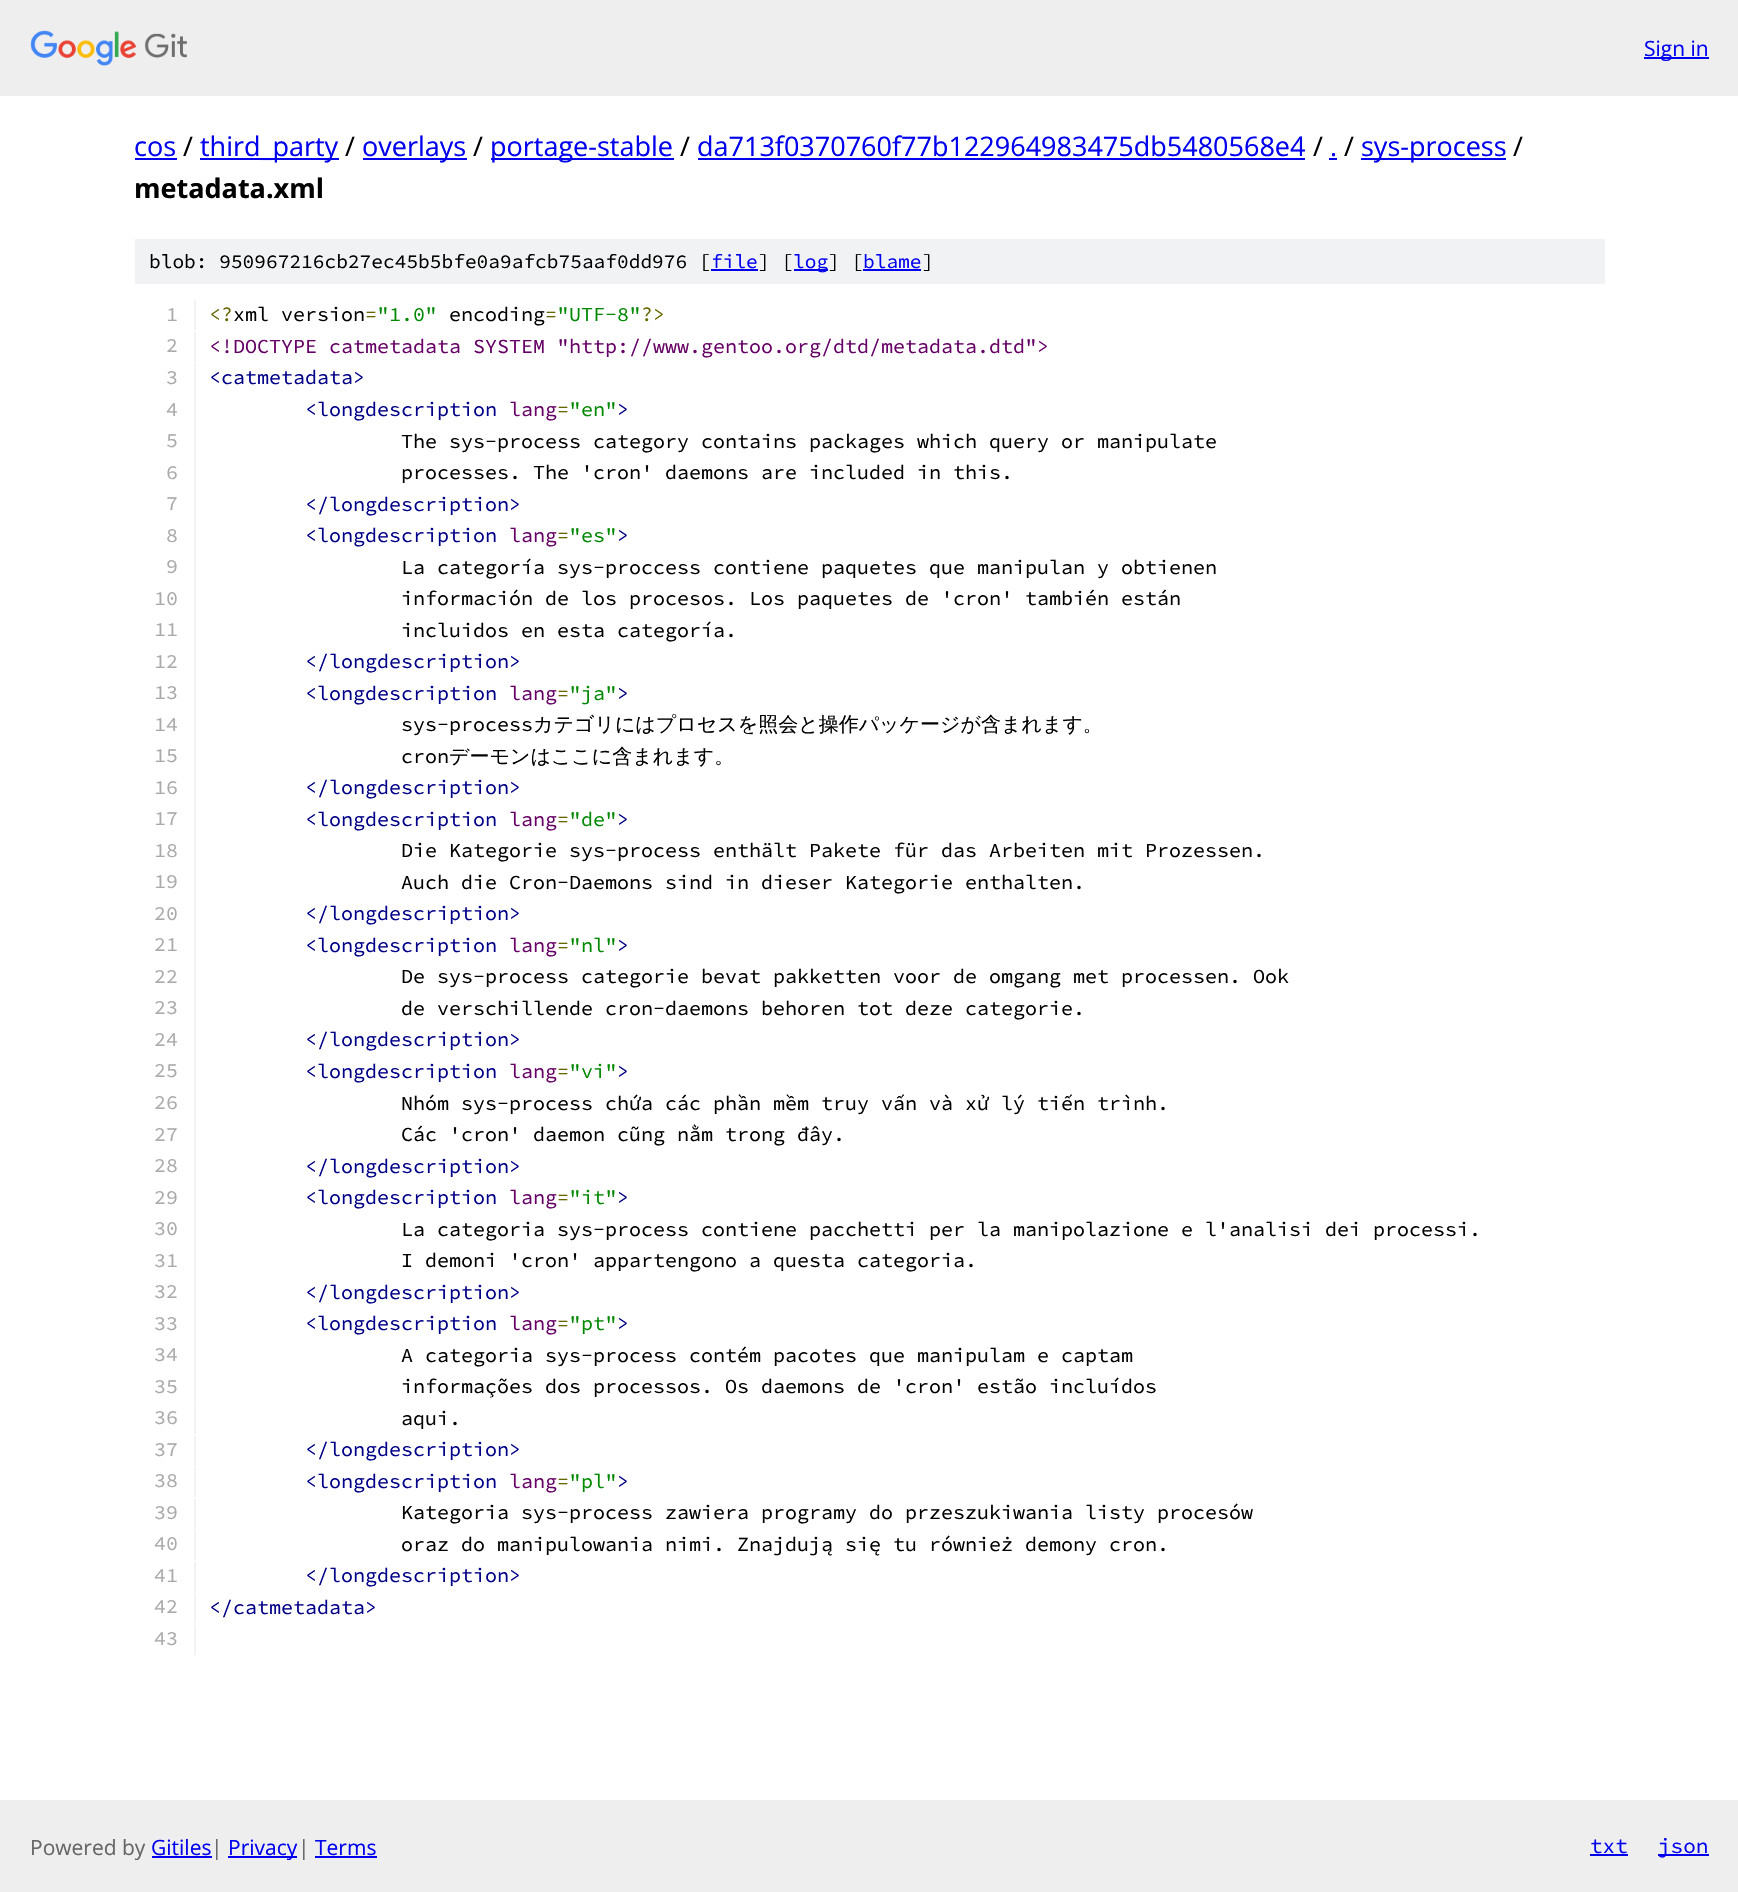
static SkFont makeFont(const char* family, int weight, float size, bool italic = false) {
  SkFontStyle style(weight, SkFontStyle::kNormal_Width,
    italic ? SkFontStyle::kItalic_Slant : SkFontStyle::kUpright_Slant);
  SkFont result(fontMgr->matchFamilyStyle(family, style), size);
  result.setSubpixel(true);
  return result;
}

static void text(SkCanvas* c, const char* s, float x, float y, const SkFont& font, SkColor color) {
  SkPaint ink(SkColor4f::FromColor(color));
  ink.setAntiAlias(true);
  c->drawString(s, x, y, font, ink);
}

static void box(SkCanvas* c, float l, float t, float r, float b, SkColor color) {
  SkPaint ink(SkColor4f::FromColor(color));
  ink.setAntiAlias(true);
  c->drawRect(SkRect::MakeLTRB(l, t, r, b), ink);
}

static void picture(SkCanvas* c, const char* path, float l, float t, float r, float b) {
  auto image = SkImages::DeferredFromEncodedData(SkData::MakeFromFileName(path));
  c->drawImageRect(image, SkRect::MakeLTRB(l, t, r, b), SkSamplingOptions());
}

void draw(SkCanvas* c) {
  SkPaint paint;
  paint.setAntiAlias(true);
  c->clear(0xffffffff);
  box(c, 0, 0, 1738, 96, 0xffeeeeee);
  picture(c, "img_01.png", 30, 30, 187, 66);
  box(c, 1644, 57, 1709, 59, 0xff0000ee);
  SkFont face1 = makeFont("Open Sans", 400, 21);
  text(c, "Sign in", 1644, 56, face1, 0xff0000ee);
  SkFont face2 = makeFont("Open Sans", 400, 27);
  text(c, "cos", 134, 156, face2, 0xff0000ee);
  box(c, 135, 158, 177, 160, 0xff0000ee);
  text(c, "/", 183, 156, face2, 0xff000000);
  box(c, 200, 158, 339, 160, 0xff0000ee);
  text(c, "third_party", 200, 156, face2, 0xff0000ee);
  text(c, "/", 345, 156, face2, 0xff000000);
  box(c, 363, 158, 467, 160, 0xff0000ee);
  text(c, "overlays", 362, 156, face2, 0xff0000ee);
  text(c, "/", 473, 156, face2, 0xff000000);
  box(c, 491, 158, 674, 160, 0xff0000ee);
  text(c, "portage-stable", 490, 156, face2, 0xff0000ee);
  text(c, "/", 680, 156, face2, 0xff000000);
  text(c, "da713f0370760f77b122964983475db5480568e4", 697, 156, face2, 0xff0000ee);
  box(c, 698, 158, 1305, 160, 0xff0000ee);
  text(c, "/", 1313, 156, face2, 0xff000000);
  text(c, ".", 1330, 156, face2, 0xff0000ee);
  box(c, 1329, 158, 1337, 160, 0xff0000ee);
  text(c, "/", 1344, 156, face2, 0xff000000);
  box(c, 1361, 158, 1506, 160, 0xff0000ee);
  text(c, "sys-process", 1361, 156, face2, 0xff0000ee);
  text(c, "/", 1513, 156, face2, 0xff000000);
  SkFont face3 = makeFont("Open Sans", 700, 27);
  text(c, "metadata.xml", 134, 198, face3, 0xff000000);
  box(c, 135, 239, 1605, 284, 0xfff1f2f3);
  SkFont face4 = makeFont("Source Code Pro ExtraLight", 200, 19.5f);
  text(c, "blob: 950967216cb27ec45b5bfe0a9afcb75aaf0dd976 [", 149, 268, face4, 0xff000000);
  text(c, "file", 711, 268, face4, 0xff0000ee);
  box(c, 711, 269, 758, 271, 0xff0000ee);
  text(c, "] [", 758, 268, face4, 0xff000000);
  box(c, 794, 269, 828, 271, 0xff0000ee);
  text(c, "log", 793, 268, face4, 0xff0000ee);
  text(c, "] [", 828, 268, face4, 0xff000000);
  text(c, "blame", 863, 268, face4, 0xff0000ee);
  box(c, 863, 269, 921, 271, 0xff0000ee);
  text(c, "]", 922, 268, face4, 0xff000000);
  box(c, 194, 300, 196, 330, 0xfff1f2f3);
  SkFont face5 = makeFont("Source Code Pro ExtraLight", 200, 20);
  text(c, "1", 166, 321, face5, 0xffaaaaaa);
  text(c, "<?", 209, 321, face5, 0xff666600);
  text(c, "xml version", 233, 321, face5, 0xff000000);
  text(c, "=", 365, 321, face5, 0xff666600);
  text(c, "\"1.0\"", 377, 321, face5, 0xff008800);
  text(c, "encoding", 449, 321, face5, 0xff000000);
  text(c, "=", 545, 321, face5, 0xff666600);
  text(c, "\"UTF-8\"", 557, 321, face5, 0xff008800);
  text(c, "?>", 641, 321, face5, 0xff666600);
  box(c, 194, 332, 196, 362, 0xfff1f2f3);
  text(c, "2", 166, 352, face5, 0xffaaaaaa);
  text(c, "<!DOCTYPE catmetadata SYSTEM \"http://www.gentoo.org/dtd/metadata.dtd\">", 209, 353, face5, 0xff660066);
  box(c, 194, 363, 196, 1403, 0xfff1f2f3);
  text(c, "3", 166, 384, face5, 0xffaaaaaa);
  text(c, "<catmetadata>", 209, 384, face5, 0xff000088);
  text(c, "4", 166, 416, face5, 0xffaaaaaa);
  text(c, "<longdescription", 305, 416, face5, 0xff000088);
  text(c, "lang", 509, 416, face5, 0xff660066);
  text(c, "=", 557, 416, face5, 0xff666600);
  text(c, "\"en\"", 569, 416, face5, 0xff008800);
  text(c, ">", 617, 416, face5, 0xff000088);
  text(c, "5", 166, 447, face5, 0xffaaaaaa);
  text(c, "The sys-process category contains packages which query or manipulate", 401, 448, face5, 0xff000000);
  text(c, "6", 166, 479, face5, 0xffaaaaaa);
  text(c, "processes. The 'cron' daemons are included in this.", 401, 479, face5, 0xff000000);
  text(c, "7", 166, 510, face5, 0xffaaaaaa);
  text(c, "</longdescription>", 305, 511, face5, 0xff000088);
  text(c, "8", 166, 542, face5, 0xffaaaaaa);
  text(c, "<longdescription", 305, 542, face5, 0xff000088);
  text(c, "lang", 509, 542, face5, 0xff660066);
  text(c, "=", 557, 542, face5, 0xff666600);
  text(c, "\"es\"", 569, 542, face5, 0xff008800);
  text(c, ">", 617, 542, face5, 0xff000088);
  text(c, "9", 166, 573, face5, 0xffaaaaaa);
  text(c, "La categoría sys-proccess contiene paquetes que manipulan y obtienen", 401, 574, face5, 0xff000000);
  text(c, "10", 154, 605, face5, 0xffaaaaaa);
  text(c, "información de los procesos. Los paquetes de 'cron' también están", 401, 605, face5, 0xff000000);
  text(c, "11", 154, 636, face5, 0xffaaaaaa);
  text(c, "incluidos en esta categoría.", 401, 637, face5, 0xff000000);
  text(c, "12", 154, 668, face5, 0xffaaaaaa);
  text(c, "</longdescription>", 305, 668, face5, 0xff000088);
  text(c, "13", 154, 699, face5, 0xffaaaaaa);
  text(c, "<longdescription", 305, 700, face5, 0xff000088);
  text(c, "lang", 509, 700, face5, 0xff660066);
  text(c, "=", 557, 700, face5, 0xff666600);
  text(c, "\"ja\"", 569, 700, face5, 0xff008800);
  text(c, ">", 617, 700, face5, 0xff000088);
  text(c, "14", 154, 731, face5, 0xffaaaaaa);
  text(c, "sys-process", 401, 731, face5, 0xff000000);
  SkFont face6 = makeFont("WenQuanYi Zen Hei", 500, 20);
  text(c, "カテゴリにはプロセスを照会と操作パッケージが含まれます。", 533, 731, face6, 0xff000000);
  text(c, "15", 154, 762, face5, 0xffaaaaaa);
  text(c, "cron", 401, 763, face5, 0xff000000);
  text(c, "デーモンはここに含まれます。", 449, 763, face6, 0xff000000);
  text(c, "16", 154, 794, face5, 0xffaaaaaa);
  text(c, "</longdescription>", 305, 794, face5, 0xff000088);
  text(c, "17", 154, 825, face5, 0xffaaaaaa);
  text(c, "<longdescription", 305, 826, face5, 0xff000088);
  text(c, "lang", 509, 826, face5, 0xff660066);
  text(c, "=", 557, 826, face5, 0xff666600);
  text(c, "\"de\"", 569, 826, face5, 0xff008800);
  text(c, ">", 617, 826, face5, 0xff000088);
  text(c, "18", 154, 857, face5, 0xffaaaaaa);
  text(c, "Die Kategorie sys-process enthält Pakete für das Arbeiten mit Prozessen.", 401, 857, face5, 0xff000000);
  text(c, "19", 154, 888, face5, 0xffaaaaaa);
  text(c, "Auch die Cron-Daemons sind in dieser Kategorie enthalten.", 401, 889, face5, 0xff000000);
  text(c, "20", 154, 920, face5, 0xffaaaaaa);
  text(c, "</longdescription>", 305, 920, face5, 0xff000088);
  text(c, "21", 154, 951, face5, 0xffaaaaaa);
  text(c, "<longdescription", 305, 952, face5, 0xff000088);
  text(c, "lang", 509, 952, face5, 0xff660066);
  text(c, "=", 557, 952, face5, 0xff666600);
  text(c, "\"nl\"", 569, 952, face5, 0xff008800);
  text(c, ">", 617, 952, face5, 0xff000088);
  text(c, "22", 154, 983, face5, 0xffaaaaaa);
  text(c, "De sys-process categorie bevat pakketten voor de omgang met processen. Ook", 401, 983, face5, 0xff000000);
  text(c, "23", 154, 1014, face5, 0xffaaaaaa);
  text(c, "de verschillende cron-daemons behoren tot deze categorie.", 401, 1015, face5, 0xff000000);
  text(c, "24", 154, 1046, face5, 0xffaaaaaa);
  text(c, "</longdescription>", 305, 1046, face5, 0xff000088);
  text(c, "25", 154, 1077, face5, 0xffaaaaaa);
  text(c, "<longdescription", 305, 1078, face5, 0xff000088);
  text(c, "lang", 509, 1078, face5, 0xff660066);
  text(c, "=", 557, 1078, face5, 0xff666600);
  text(c, "\"vi\"", 569, 1078, face5, 0xff008800);
  text(c, ">", 617, 1078, face5, 0xff000088);
  text(c, "26", 154, 1109, face5, 0xffaaaaaa);
  text(c, "Nhóm sys-process chứa các phần mềm truy vấn và xử lý tiến trình.", 401, 1110, face5, 0xff000000);
  text(c, "27", 154, 1141, face5, 0xffaaaaaa);
  text(c, "Các 'cron' daemon cũng nằm trong đây.", 401, 1141, face5, 0xff000000);
  text(c, "28", 154, 1172, face5, 0xffaaaaaa);
  text(c, "</longdescription>", 305, 1173, face5, 0xff000088);
  text(c, "29", 154, 1204, face5, 0xffaaaaaa);
  text(c, "<longdescription", 305, 1204, face5, 0xff000088);
  text(c, "lang", 509, 1204, face5, 0xff660066);
  text(c, "=", 557, 1204, face5, 0xff666600);
  text(c, "\"it\"", 569, 1204, face5, 0xff008800);
  text(c, ">", 617, 1204, face5, 0xff000088);
  text(c, "30", 154, 1235, face5, 0xffaaaaaa);
  text(c, "La categoria sys-process contiene pacchetti per la manipolazione e l'analisi dei processi.", 401, 1236, face5, 0xff000000);
  text(c, "31", 154, 1267, face5, 0xffaaaaaa);
  text(c, "I demoni 'cron' appartengono a questa categoria.", 401, 1267, face5, 0xff000000);
  text(c, "32", 154, 1298, face5, 0xffaaaaaa);
  text(c, "</longdescription>", 305, 1299, face5, 0xff000088);
  text(c, "33", 154, 1330, face5, 0xffaaaaaa);
  text(c, "<longdescription", 305, 1330, face5, 0xff000088);
  text(c, "lang", 509, 1330, face5, 0xff660066);
  text(c, "=", 557, 1330, face5, 0xff666600);
  text(c, "\"pt\"", 569, 1330, face5, 0xff008800);
  text(c, ">", 617, 1330, face5, 0xff000088);
  text(c, "34", 154, 1361, face5, 0xffaaaaaa);
  text(c, "A categoria sys-process contém pacotes que manipulam e captam", 401, 1362, face5, 0xff000000);
  text(c, "35", 154, 1393, face5, 0xffaaaaaa);
  text(c, "informações dos processos. Os daemons de 'cron' estão incluídos", 401, 1393, face5, 0xff000000);
  box(c, 194, 1404, 196, 1434, 0xfff1f2f3);
  text(c, "36", 154, 1424, face5, 0xffaaaaaa);
  text(c, "aqui.", 401, 1425, face5, 0xff000000);
  box(c, 194, 1436, 196, 1466, 0xfff1f2f3);
  text(c, "37", 154, 1456, face5, 0xffaaaaaa);
  text(c, "</longdescription>", 305, 1456, face5, 0xff000088);
  box(c, 194, 1467, 196, 1497, 0xfff1f2f3);
  text(c, "38", 154, 1487, face5, 0xffaaaaaa);
  text(c, "<longdescription", 305, 1488, face5, 0xff000088);
  text(c, "lang", 509, 1488, face5, 0xff660066);
  text(c, "=", 557, 1488, face5, 0xff666600);
  text(c, "\"pl\"", 569, 1488, face5, 0xff008800);
  text(c, ">", 617, 1488, face5, 0xff000088);
  box(c, 194, 1499, 196, 1529, 0xfff1f2f3);
  text(c, "39", 154, 1519, face5, 0xffaaaaaa);
  text(c, "Kategoria sys-process zawiera programy do przeszukiwania listy procesów", 401, 1519, face5, 0xff000000);
  box(c, 194, 1530, 196, 1560, 0xfff1f2f3);
  text(c, "40", 154, 1550, face5, 0xffaaaaaa);
  text(c, "oraz do manipulowania nimi. Znajdują się tu również demony cron.", 401, 1551, face5, 0xff000000);
  box(c, 194, 1562, 196, 1592, 0xfff1f2f3);
  text(c, "41", 154, 1582, face5, 0xffaaaaaa);
  text(c, "</longdescription>", 305, 1582, face5, 0xff000088);
  box(c, 194, 1593, 196, 1623, 0xfff1f2f3);
  text(c, "42", 154, 1613, face5, 0xffaaaaaa);
  text(c, "</catmetadata>", 209, 1614, face5, 0xff000088);
  box(c, 194, 1625, 196, 1655, 0xfff1f2f3);
  text(c, "43", 154, 1645, face5, 0xffaaaaaa);
  box(c, 0, 1800, 1738, 1892, 0xffeeeeee);
  text(c, "Powered by", 30, 1855, face1, 0xff666666);
  text(c, "Gitiles", 151, 1855, face1, 0xff0000ee);
  box(c, 152, 1856, 212, 1858, 0xff0000ee);
  text(c, "|", 211, 1855, face1, 0xff666666);
  box(c, 228, 1856, 297, 1858, 0xff0000ee);
  text(c, "Privacy", 228, 1855, face1, 0xff0000ee);
  text(c, "|", 298, 1855, face1, 0xff666666);
  text(c, "Terms", 315, 1855, face1, 0xff0000ee);
  box(c, 315, 1856, 377, 1858, 0xff0000ee);
  SkFont face7 = makeFont("Source Code Pro ExtraLight", 200, 21);
  text(c, "txt", 1590, 1853, face7, 0xff0000ee);
  box(c, 1590, 1854, 1628, 1856, 0xff0000ee);
  box(c, 1658, 1854, 1709, 1856, 0xff0000ee);
  text(c, "json", 1658, 1853, face7, 0xff0000ee);
}
